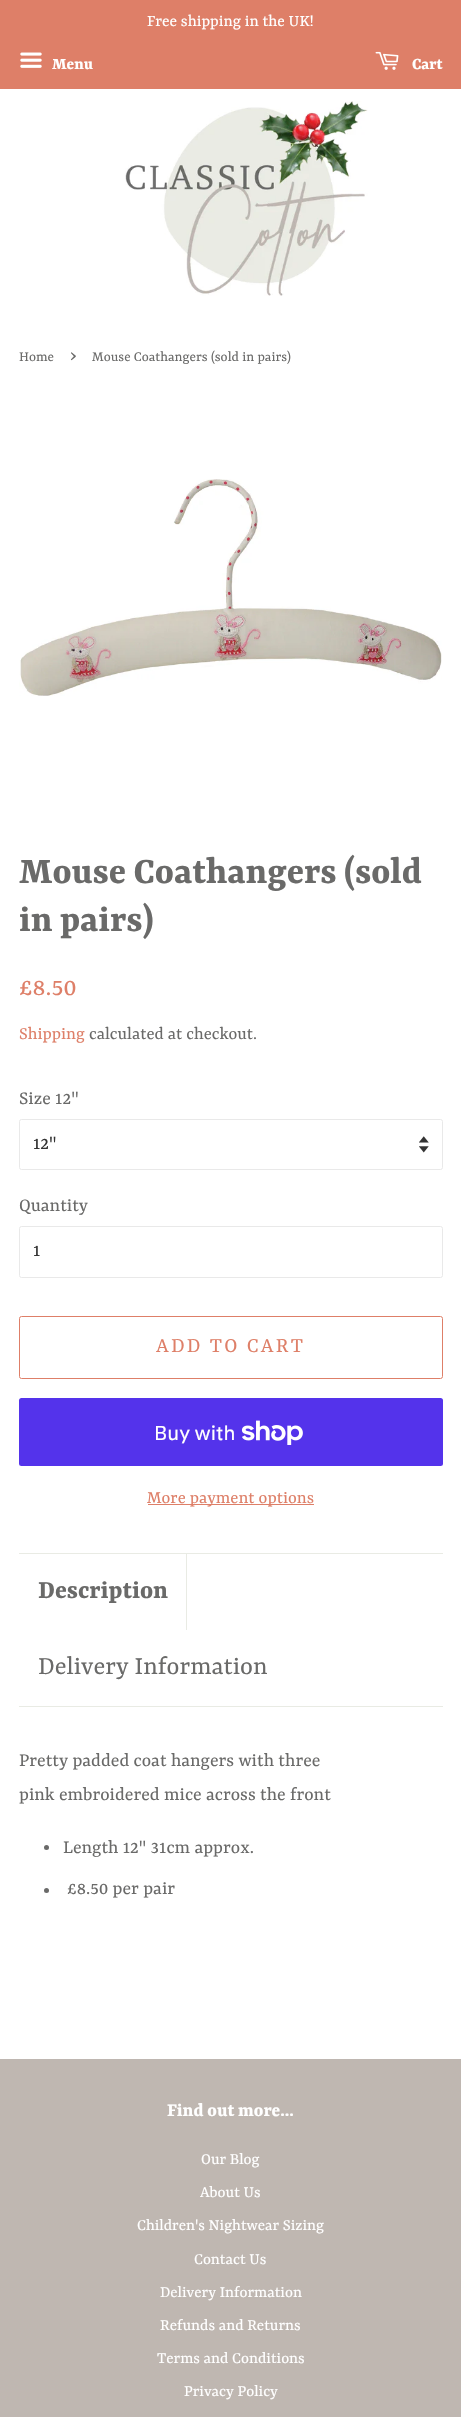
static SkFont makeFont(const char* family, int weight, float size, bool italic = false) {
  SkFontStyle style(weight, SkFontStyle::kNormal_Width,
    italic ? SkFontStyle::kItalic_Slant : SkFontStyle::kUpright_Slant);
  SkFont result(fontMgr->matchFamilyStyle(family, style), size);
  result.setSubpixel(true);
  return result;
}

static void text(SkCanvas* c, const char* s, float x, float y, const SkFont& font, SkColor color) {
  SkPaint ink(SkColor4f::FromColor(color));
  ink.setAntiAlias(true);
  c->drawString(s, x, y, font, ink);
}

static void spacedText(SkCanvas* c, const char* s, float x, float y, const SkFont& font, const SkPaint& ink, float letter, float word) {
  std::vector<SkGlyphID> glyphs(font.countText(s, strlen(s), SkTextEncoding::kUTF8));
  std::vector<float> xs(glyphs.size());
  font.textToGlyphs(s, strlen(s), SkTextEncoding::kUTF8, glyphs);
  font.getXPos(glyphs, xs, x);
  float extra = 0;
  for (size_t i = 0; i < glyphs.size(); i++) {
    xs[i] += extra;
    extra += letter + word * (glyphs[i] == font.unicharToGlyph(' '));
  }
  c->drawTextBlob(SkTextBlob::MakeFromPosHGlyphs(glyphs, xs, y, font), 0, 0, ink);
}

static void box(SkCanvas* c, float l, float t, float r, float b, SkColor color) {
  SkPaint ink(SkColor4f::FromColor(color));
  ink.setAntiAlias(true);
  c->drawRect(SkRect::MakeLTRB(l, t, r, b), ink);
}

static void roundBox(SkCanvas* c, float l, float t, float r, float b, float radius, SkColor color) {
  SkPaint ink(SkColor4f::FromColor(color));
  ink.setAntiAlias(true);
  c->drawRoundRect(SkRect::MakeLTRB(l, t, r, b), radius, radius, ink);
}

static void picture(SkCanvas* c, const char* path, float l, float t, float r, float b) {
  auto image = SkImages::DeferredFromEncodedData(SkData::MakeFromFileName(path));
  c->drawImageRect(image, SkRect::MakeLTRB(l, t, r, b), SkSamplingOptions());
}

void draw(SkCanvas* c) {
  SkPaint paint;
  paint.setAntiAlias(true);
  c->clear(0xffffffff);
  box(c, 0, 0, 461, 89, 0xffde7f68);
  SkFont face1 = makeFont("Rasa", 400, 17.5f);
  text(c, "Free shipping in the UK!", 147, 26, face1, 0xffffffff);
  picture(c, "img_01.png", 20, 52, 42, 68);
  SkFont face2 = makeFont("Rasa", 700, 17.5f);
  text(c, "Menu", 52, 69, face2, 0xffffffff);
  picture(c, "img_02.png", 375, 51, 399, 70);
  text(c, "Cart", 412, 69, face2, 0xffffffff);
  picture(c, "img_03.png", 125, 101, 368, 296);
  SkFont face3 = makeFont("Rasa", 400, 15);
  text(c, "Home", 19, 361, face3, 0xff6a6a69);
  SkFont face4 = makeFont("Rasa", 400, 21);
  text(c, "›", 70, 361, face4, 0xff6a6a69);
  text(c, "Mouse Coathangers (sold in pairs)", 92, 361, face3, 0xff6a6a69);
  picture(c, "img_04.png", 19, 479, 442, 696);
  SkFont face5 = makeFont("Rasa", 700, 40);
  text(c, "Mouse Coathangers (sold", 19, 883, face5, 0xff6a6a69);
  text(c, "in pairs)", 19, 931, face5, 0xff6a6a69);
  SkFont face6 = makeFont("Rasa", 400, 28);
  text(c, "£8.50", 19, 995, face6, 0xffde7f68);
  SkFont face7 = makeFont("Rasa", 400, 18.75f);
  text(c, "Shipping", 19, 1039, face7, 0xffde7f68);
  text(c, "calculated at checkout.", 89, 1039, face7, 0xff6a6a69);
  SkFont face8 = makeFont("Rasa", 400, 20);
  text(c, "Size 12\"", 19, 1104, face8, 0xff6a6a69);
  picture(c, "img_05.png", 419, 1136, 429, 1153);
  paint.setStyle(SkPaint::kStroke_Style);
  paint.setStrokeWidth(1);
  paint.setColor(0xffe9e9e9);
  c->drawRoundRect(SkRect::MakeLTRB(19.5f, 1119.5f, 442.5f, 1169.5f), 2, 2, paint);
  text(c, "12\"", 33, 1149, face8, 0xff333333);
  text(c, "Quantity", 19, 1211, face8, 0xff6a6a69);
  c->drawRoundRect(SkRect::MakeLTRB(19.5f, 1226.5f, 442.5f, 1277.5f), 2, 2, paint);
  text(c, "1", 33, 1256, face8, 0xff333333);
  paint.setColor(0xffde7f68);
  c->drawRoundRect(SkRect::MakeLTRB(19.5f, 1316.5f, 442.5f, 1378.5f), 2, 2, paint);
  SkFont face9 = makeFont("Rasa", 400, 22.5f);
  paint.setStyle(SkPaint::kFill_Style);
  spacedText(c, "ADD TO CART", 156, 1352, face9, paint, 2.25f, 0);
  roundBox(c, 19, 1398, 443, 1466, 2.5f, 0xff5433eb);
  SkFont face10 = makeFont("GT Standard", 400, 20);
  text(c, "Buy with", 154, 1440, face10, 0xffffffff);
  picture(c, "img_06.png", 241, 1420, 303, 1445);
  box(c, 148, 1504, 314, 1505, 0xffde7f68);
  text(c, "More payment options", 147, 1503, face7, 0xffde7f68);
  box(c, 19, 1553, 443, 1554, 0xffe9ebe4);
  box(c, 19, 1706, 443, 1707, 0xffe9ebe4);
  box(c, 186, 1554, 187, 1630, 0xffe9ebe4);
  SkFont face11 = makeFont("Rasa", 700, 27.5f);
  text(c, "Description", 38, 1598, face11, 0xff6a6a69);
  SkFont face12 = makeFont("Rasa", 400, 27.5f);
  text(c, "Delivery Information", 38, 1674, face12, 0xff6a6a69);
  text(c, "Pretty padded coat hangers with three", 19, 1766, face8, 0xff6a6a69);
  text(c, "pink embroidered mice across the front", 19, 1800, face8, 0xff6a6a69);
  paint.setColor(0xff6a6a69);
  c->drawCircle(46.5f, 1847.5f, 2.5f, paint);
  text(c, "Length 12\" 31cm approx.", 63, 1853, face8, 0xff6a6a69);
  c->drawCircle(46.5f, 1890.5f, 2.5f, paint);
  text(c, "£8.50 per pair", 67, 1894, face8, 0xff6a6a69);
  box(c, 0, 2059, 461, 2417, 0xffbfb7b1);
  SkFont face13 = makeFont("Rasa", 700, 20);
  text(c, "Find out more...", 167, 2116, face13, 0xffffffff);
  SkFont face14 = makeFont("Rasa", 400, 17);
  text(c, "Our Blog", 201, 2164, face14, 0xffffffff);
  text(c, "About Us", 200, 2197, face14, 0xffffffff);
  text(c, "Children's Nightwear Sizing", 137, 2230, face14, 0xffffffff);
  text(c, "Contact Us", 194, 2264, face14, 0xffffffff);
  text(c, "Delivery Information", 160, 2297, face14, 0xffffffff);
  text(c, "Refunds and Returns", 160, 2330, face14, 0xffffffff);
  text(c, "Terms and Conditions", 157, 2363, face14, 0xffffffff);
  text(c, "Privacy Policy", 184, 2396, face14, 0xffffffff);
}
